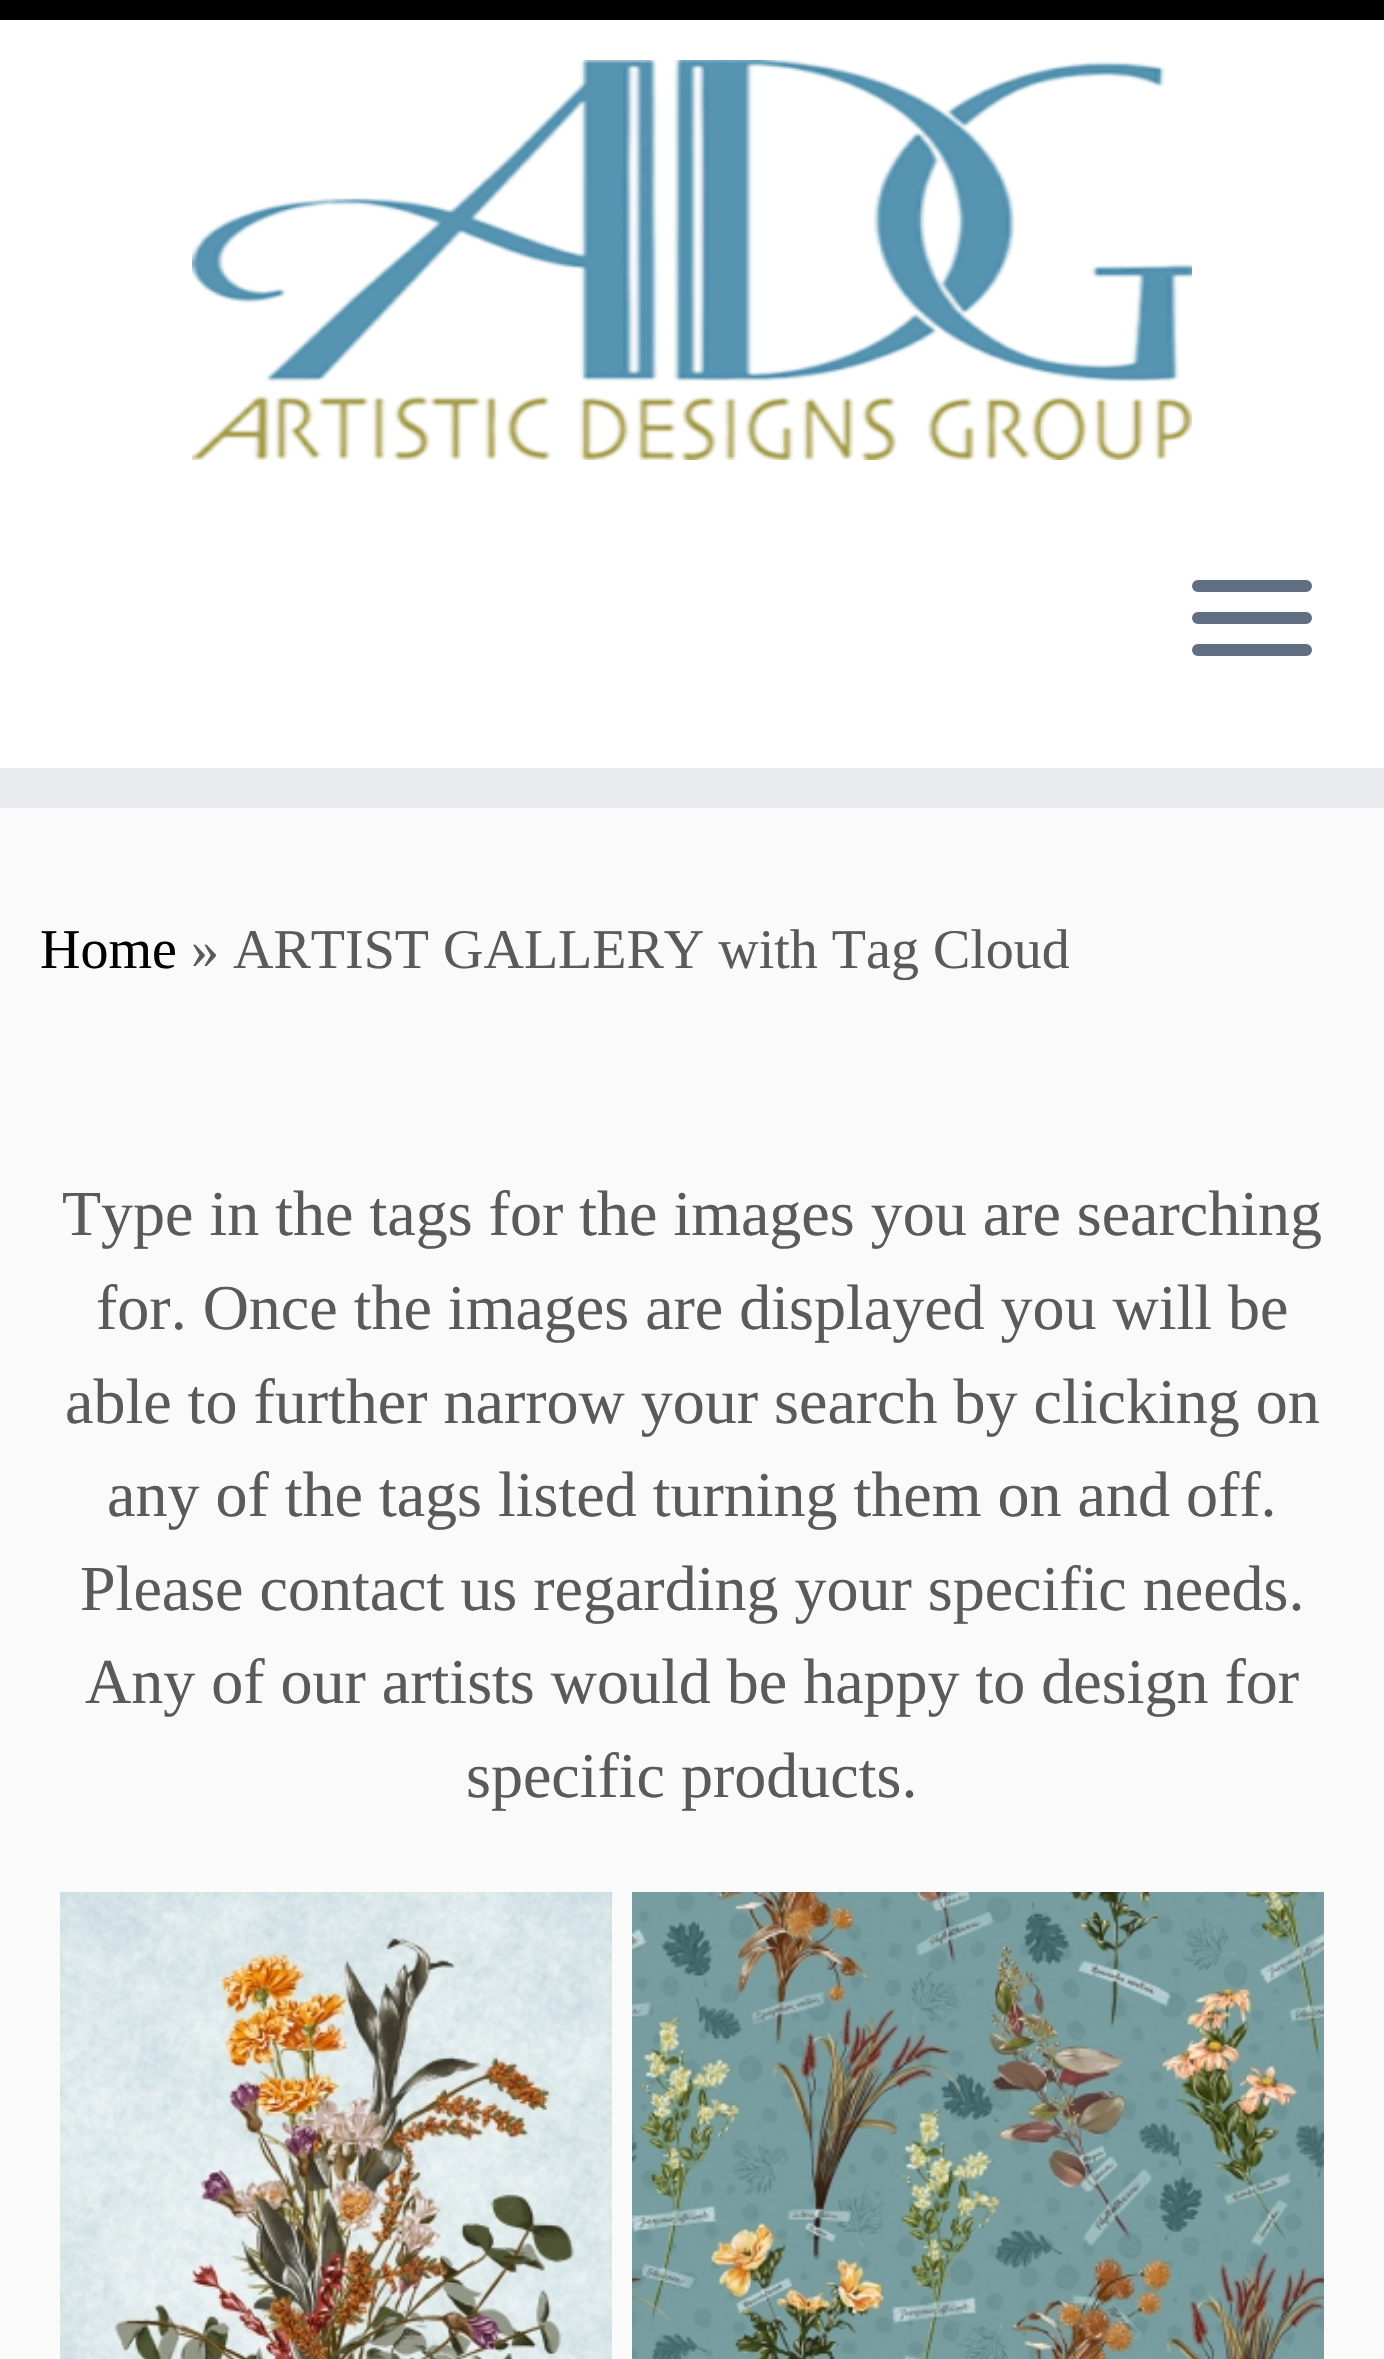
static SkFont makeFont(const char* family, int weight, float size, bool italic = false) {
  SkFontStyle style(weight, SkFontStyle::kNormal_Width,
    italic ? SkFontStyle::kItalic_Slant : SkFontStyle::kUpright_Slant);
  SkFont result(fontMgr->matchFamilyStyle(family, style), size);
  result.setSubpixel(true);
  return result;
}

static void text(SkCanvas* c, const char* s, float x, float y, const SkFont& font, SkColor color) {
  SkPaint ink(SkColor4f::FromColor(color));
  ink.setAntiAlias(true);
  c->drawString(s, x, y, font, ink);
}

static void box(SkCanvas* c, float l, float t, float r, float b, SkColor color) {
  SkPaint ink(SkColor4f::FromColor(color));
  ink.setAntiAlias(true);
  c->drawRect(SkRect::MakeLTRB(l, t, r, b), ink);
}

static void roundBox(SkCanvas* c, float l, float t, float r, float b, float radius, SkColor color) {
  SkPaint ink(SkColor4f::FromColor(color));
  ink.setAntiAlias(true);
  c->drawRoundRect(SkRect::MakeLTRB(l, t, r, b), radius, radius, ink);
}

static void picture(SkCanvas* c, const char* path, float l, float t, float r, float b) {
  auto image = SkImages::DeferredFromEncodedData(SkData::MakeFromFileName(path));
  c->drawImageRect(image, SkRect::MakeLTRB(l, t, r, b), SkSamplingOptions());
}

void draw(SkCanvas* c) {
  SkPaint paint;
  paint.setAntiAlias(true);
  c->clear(0xfffafafa);
  box(c, 0, 20, 1384, 768, 0xffffffff);
  box(c, 0, 0, 1384, 20, 0xff000000);
  box(c, 0, 768, 1384, 808, 0xffe9eaee);
  picture(c, "img_01.png", 192, 60, 1192, 460);
  roundBox(c, 1192, 580, 1312, 592, 6, 0xff5f6f81);
  roundBox(c, 1192, 612, 1312, 624, 6, 0xff5f6f81);
  roundBox(c, 1192, 644, 1312, 656, 6, 0xff5f6f81);
  SkFont face1 = makeFont("Liberation Serif", 400, 56);
  text(c, "Home", 40, 968, face1, 0xff000000);
  text(c, "» ARTIST GALLERY with Tag Cloud", 191, 968, face1, 0xff5a5a5a);
  SkFont face2 = makeFont("Liberation Serif", 400, 64);
  text(c, "Type in the tags for the images you are searching", 62, 1235, face2, 0xff5a5a5a);
  text(c, "for. Once the images are displayed you will be", 96, 1329, face2, 0xff5a5a5a);
  text(c, "able to further narrow your search by clicking on", 65, 1423, face2, 0xff5a5a5a);
  text(c, "any of the tags listed turning them on and off.", 107, 1516, face2, 0xff5a5a5a);
  text(c, "Please contact us regarding your specific needs.", 80, 1610, face2, 0xff5a5a5a);
  text(c, "Any of our artists would be happy to design for", 85, 1703, face2, 0xff5a5a5a);
  text(c, "specific products.", 466, 1797, face2, 0xff5a5a5a);
  picture(c, "img_02.png", 60, 1892, 612, 2359);
  picture(c, "img_03.png", 632, 1892, 1324, 2359);
}
